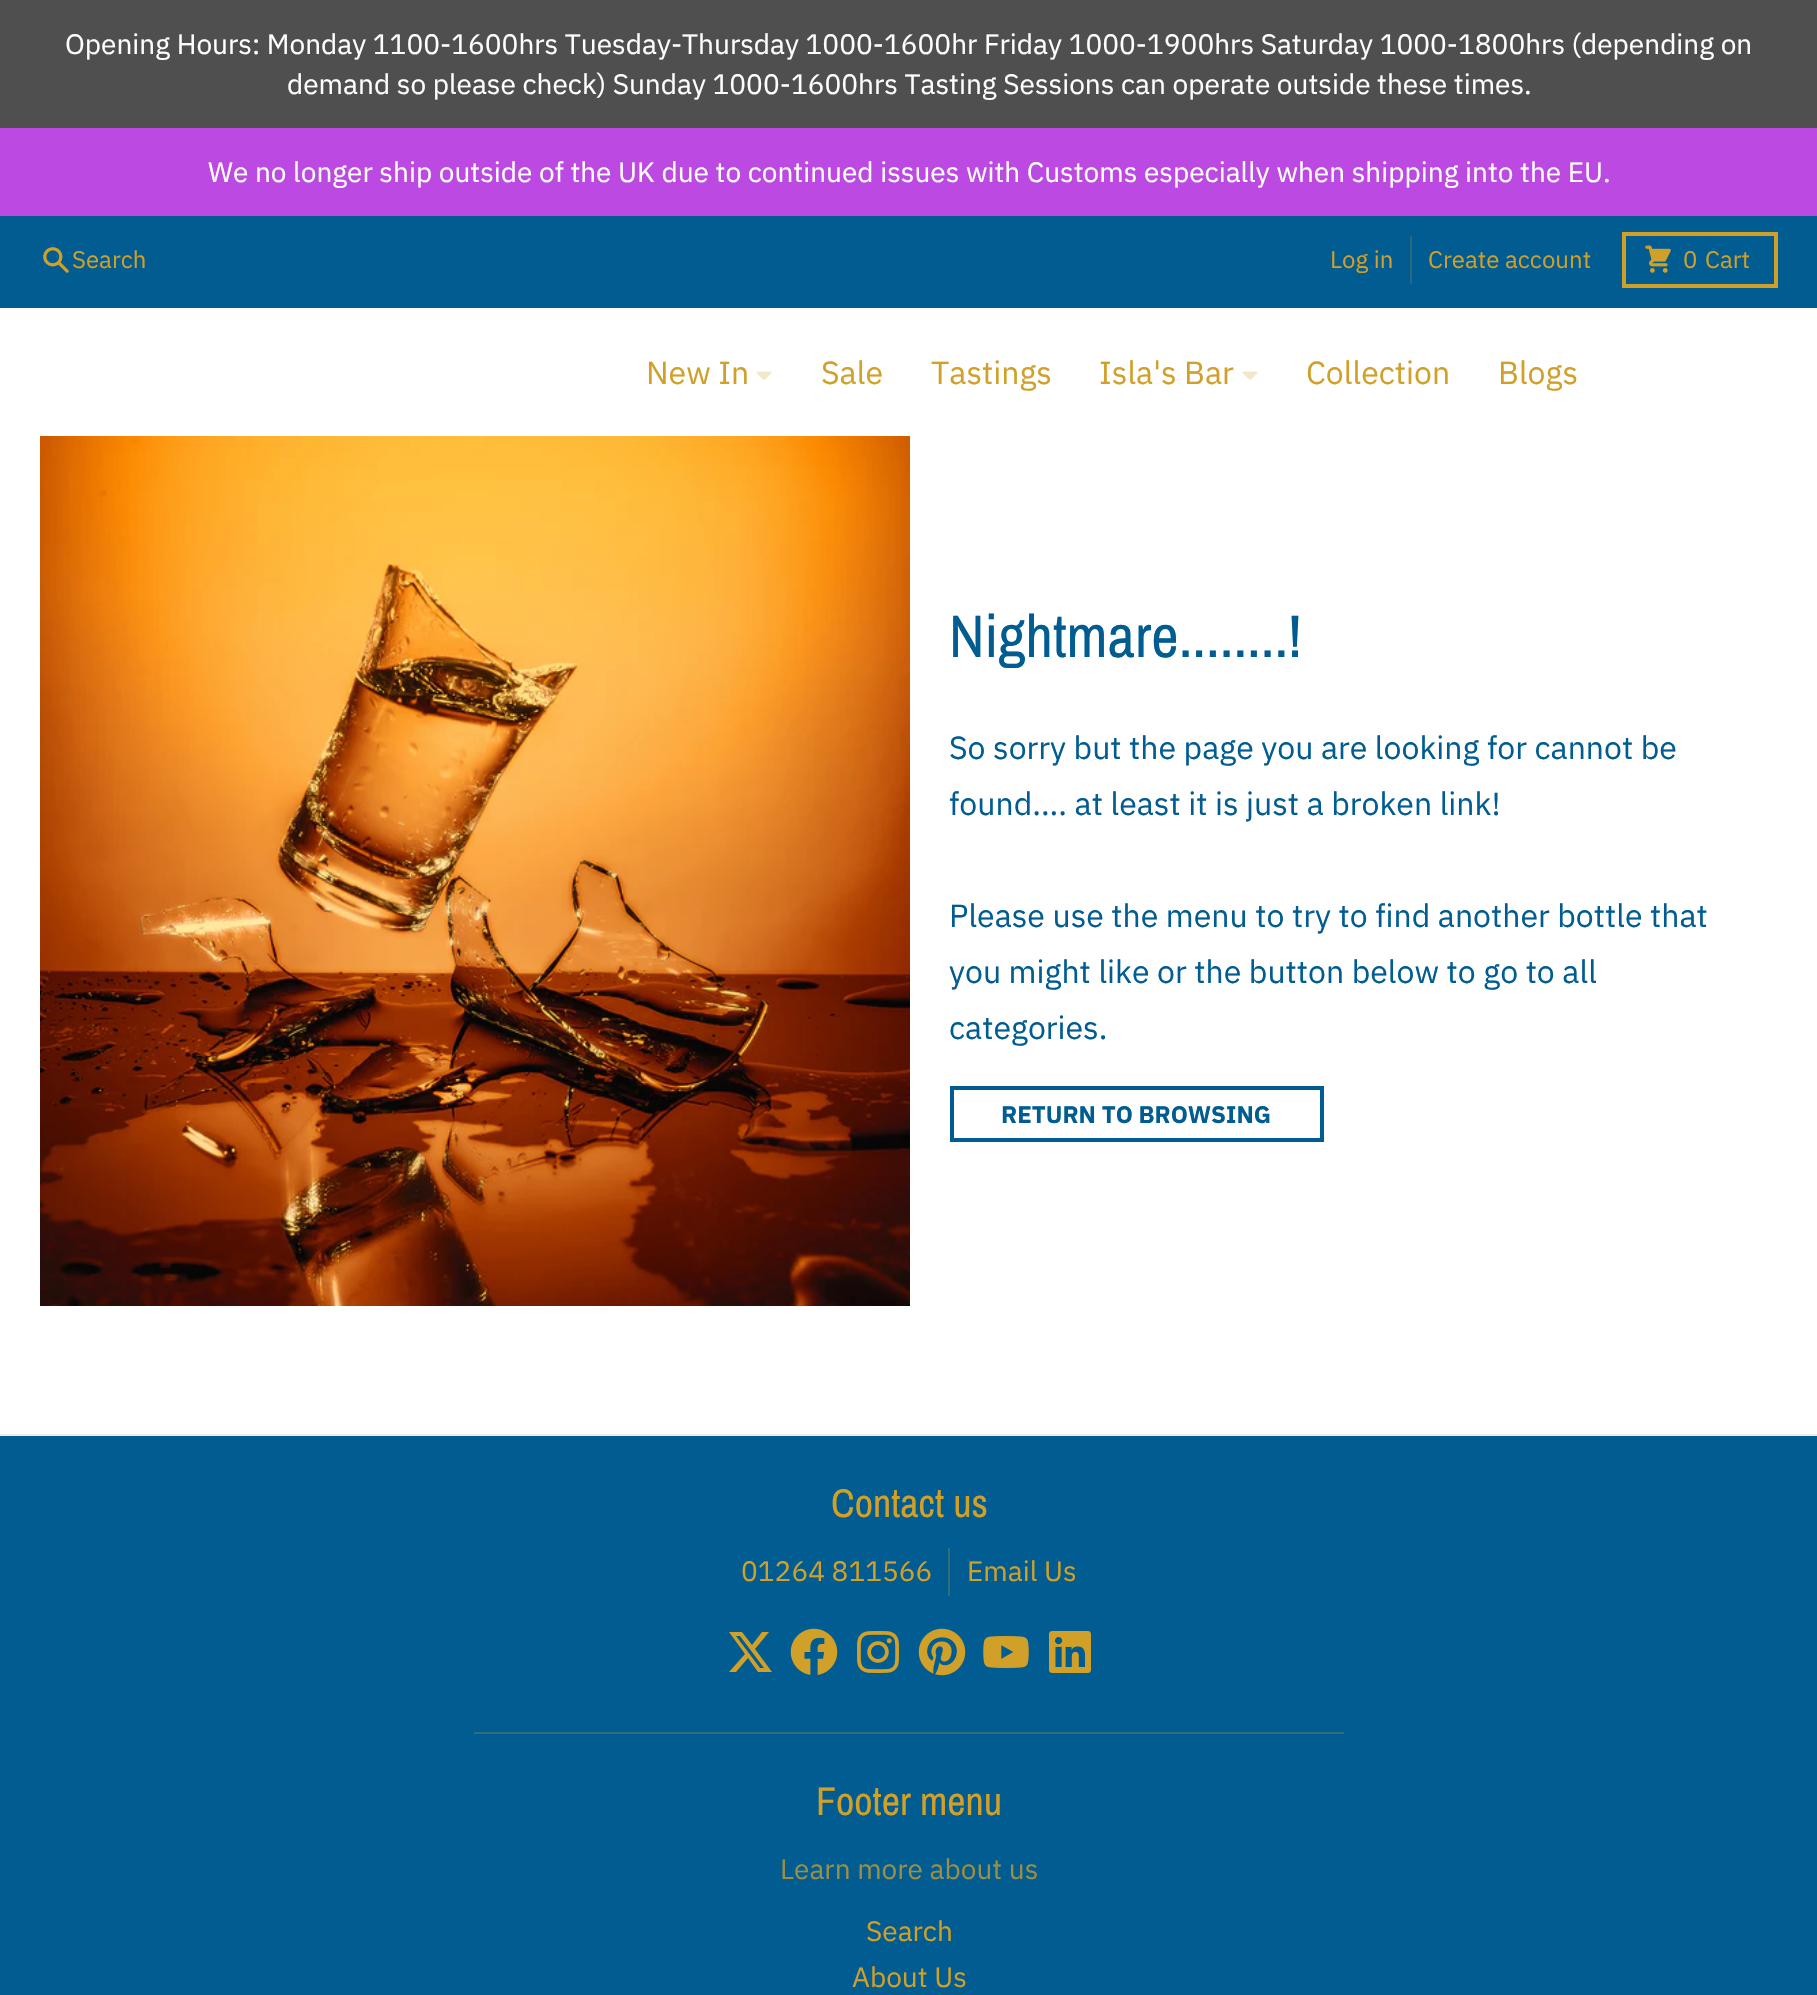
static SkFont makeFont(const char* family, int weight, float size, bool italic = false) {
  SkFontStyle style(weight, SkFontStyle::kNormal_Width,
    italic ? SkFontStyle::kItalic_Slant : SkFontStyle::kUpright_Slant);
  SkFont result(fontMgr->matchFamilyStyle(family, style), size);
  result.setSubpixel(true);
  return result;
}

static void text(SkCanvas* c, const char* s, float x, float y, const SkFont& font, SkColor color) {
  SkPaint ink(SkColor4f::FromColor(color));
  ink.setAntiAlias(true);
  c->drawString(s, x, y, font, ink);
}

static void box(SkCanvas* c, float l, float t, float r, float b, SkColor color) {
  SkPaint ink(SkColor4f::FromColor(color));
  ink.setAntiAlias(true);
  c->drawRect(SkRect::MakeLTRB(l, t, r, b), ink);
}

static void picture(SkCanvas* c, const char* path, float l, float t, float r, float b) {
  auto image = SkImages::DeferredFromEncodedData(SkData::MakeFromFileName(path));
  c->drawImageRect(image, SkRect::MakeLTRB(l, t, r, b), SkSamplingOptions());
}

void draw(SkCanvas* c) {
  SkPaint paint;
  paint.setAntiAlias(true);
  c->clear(0xff005c91);
  box(c, 0, 0, 1817, 128, 0xff4f4f4f);
  SkFont face1 = makeFont("IBM Plex Sans", 400, 28);
  text(c, "Opening Hours: Monday 1100-1600hrs Tuesday-Thursday 1000-1600hr Friday 1000-1900hrs Saturday 1000-1800hrs (depending on", 65, 54, face1, 0xffffffff);
  text(c, "demand so please check) Sunday 1000-1600hrs Tasting Sessions can operate outside these times.", 287, 94, face1, 0xffffffff);
  box(c, 0, 128, 1817, 216, 0xffbc4ae2);
  text(c, "We no longer ship outside of the UK due to continued issues with Customs especially when shipping into the EU.", 208, 182, face1, 0xffffffff);
  picture(c, "img_01.png", 43, 247, 69, 273);
  SkFont face2 = makeFont("IBM Plex Sans", 400, 24);
  text(c, "Search", 72, 268, face2, 0xffd0a029);
  text(c, "Log in", 1330, 268, face2, 0xffd0a029);
  box(c, 1410, 236, 1412, 284, 0xff2a6a7c);
  text(c, "Create account", 1428, 268, face2, 0xffd0a029);
  paint.setStyle(SkPaint::kStroke_Style);
  paint.setStrokeWidth(4);
  paint.setColor(0xffd0a029);
  c->drawRect(SkRect::MakeLTRB(1624, 234, 1776, 286), paint);
  picture(c, "img_02.png", 1645, 245, 1671, 273);
  text(c, "0", 1683, 268, face2, 0xffd0a029);
  text(c, "Cart", 1705, 268, face2, 0xffd0a029);
  box(c, 0, 308, 1817, 1434, 0xffffffff);
  SkFont face3 = makeFont("IBM Plex Sans", 400, 32);
  text(c, "New In", 646, 384, face3, 0xffd0a029);
  picture(c, "img_03.png", 756, 371, 772, 380);
  text(c, "Sale", 821, 384, face3, 0xffd0a029);
  text(c, "Tastings", 931, 384, face3, 0xffd0a029);
  text(c, "Isla's Bar", 1099, 384, face3, 0xffd0a029);
  picture(c, "img_03.png", 1242, 371, 1258, 380);
  text(c, "Collection", 1306, 384, face3, 0xffd0a029);
  text(c, "Blogs", 1498, 384, face3, 0xffd0a029);
  box(c, 0, 1434, 1817, 1436, 0xffededed);
  picture(c, "img_04.png", 40, 436, 910, 1306);
  SkFont face4 = makeFont("Archivo Narrow", 400, 60);
  text(c, "Nightmare........!", 949, 657, face4, 0xff005c91);
  text(c, "So sorry but the page you are looking for cannot be", 949, 759, face3, 0xff005c91);
  text(c, "found.... at least it is just a broken link!", 949, 815, face3, 0xff005c91);
  text(c, "Please use the menu to try to find another bottle that", 949, 927, face3, 0xff005c91);
  text(c, "you might like or the button below to go to all", 949, 983, face3, 0xff005c91);
  text(c, "categories.", 949, 1039, face3, 0xff005c91);
  paint.setColor(0xff005c91);
  c->drawRect(SkRect::MakeLTRB(952, 1088, 1322, 1140), paint);
  SkFont face5 = makeFont("IBM Plex Sans", 700, 24);
  text(c, "RETURN TO BROWSING", 1001, 1123, face5, 0xff005c91);
  SkFont face6 = makeFont("Archivo Narrow", 400, 40);
  text(c, "Contact us", 831, 1517, face6, 0xffd0a029);
  text(c, "01264 811566", 741, 1581, face1, 0xffd0a029);
  box(c, 948, 1548, 950, 1596, 0xff346d77);
  text(c, "Email Us", 967, 1581, face1, 0xffd0a029);
  paint.setStyle(SkPaint::kFill_Style);
  paint.setColor(0xffd0a029);
  c->drawPath(SkPathBuilder().moveTo(762, 1632).lineTo(769, 1632).lineTo(755, 1649).lineTo(772, 1672).lineTo(758, 1672).lineTo(748, 1658).lineTo(736, 1672).lineTo(729, 1672).lineTo(745, 1654).lineTo(729, 1632).lineTo(742, 1632).lineTo(752, 1645).close().moveTo(760, 1668).lineTo(764, 1668).lineTo(740, 1636).lineTo(736, 1636).close().detach(), paint);
  picture(c, "img_05.png", 790, 1628, 838, 1675);
  picture(c, "img_06.png", 857, 1631, 899, 1673);
  picture(c, "img_07.png", 918, 1628, 966, 1676);
  picture(c, "img_08.png", 983, 1636, 1029, 1668);
  picture(c, "img_09.png", 1049, 1631, 1091, 1673);
  box(c, 474, 1732, 1344, 1734, 0xff346d77);
  text(c, "Footer menu", 816, 1815, face6, 0xffd0a029);
  text(c, "Learn more about us", 780, 1879, face1, 0xff9c8f43);
  text(c, "Search", 866, 1941, face1, 0xffd0a029);
  text(c, "About Us", 852, 1987, face1, 0xffd0a029);
}
